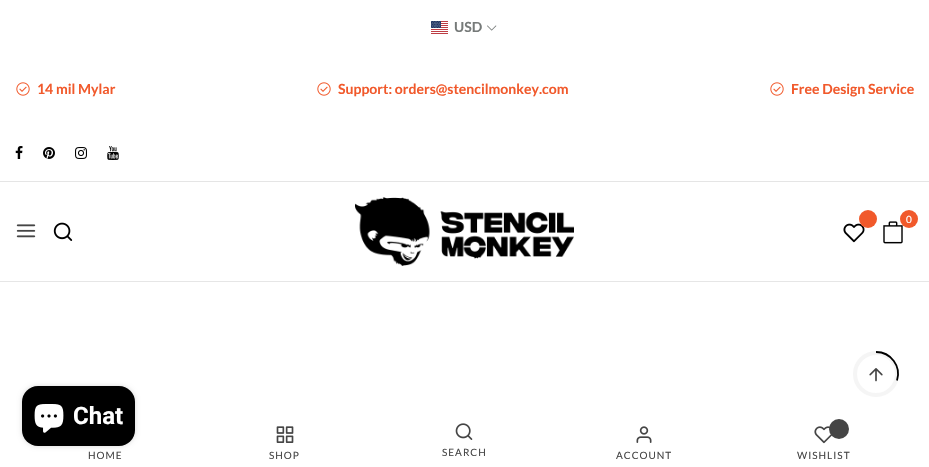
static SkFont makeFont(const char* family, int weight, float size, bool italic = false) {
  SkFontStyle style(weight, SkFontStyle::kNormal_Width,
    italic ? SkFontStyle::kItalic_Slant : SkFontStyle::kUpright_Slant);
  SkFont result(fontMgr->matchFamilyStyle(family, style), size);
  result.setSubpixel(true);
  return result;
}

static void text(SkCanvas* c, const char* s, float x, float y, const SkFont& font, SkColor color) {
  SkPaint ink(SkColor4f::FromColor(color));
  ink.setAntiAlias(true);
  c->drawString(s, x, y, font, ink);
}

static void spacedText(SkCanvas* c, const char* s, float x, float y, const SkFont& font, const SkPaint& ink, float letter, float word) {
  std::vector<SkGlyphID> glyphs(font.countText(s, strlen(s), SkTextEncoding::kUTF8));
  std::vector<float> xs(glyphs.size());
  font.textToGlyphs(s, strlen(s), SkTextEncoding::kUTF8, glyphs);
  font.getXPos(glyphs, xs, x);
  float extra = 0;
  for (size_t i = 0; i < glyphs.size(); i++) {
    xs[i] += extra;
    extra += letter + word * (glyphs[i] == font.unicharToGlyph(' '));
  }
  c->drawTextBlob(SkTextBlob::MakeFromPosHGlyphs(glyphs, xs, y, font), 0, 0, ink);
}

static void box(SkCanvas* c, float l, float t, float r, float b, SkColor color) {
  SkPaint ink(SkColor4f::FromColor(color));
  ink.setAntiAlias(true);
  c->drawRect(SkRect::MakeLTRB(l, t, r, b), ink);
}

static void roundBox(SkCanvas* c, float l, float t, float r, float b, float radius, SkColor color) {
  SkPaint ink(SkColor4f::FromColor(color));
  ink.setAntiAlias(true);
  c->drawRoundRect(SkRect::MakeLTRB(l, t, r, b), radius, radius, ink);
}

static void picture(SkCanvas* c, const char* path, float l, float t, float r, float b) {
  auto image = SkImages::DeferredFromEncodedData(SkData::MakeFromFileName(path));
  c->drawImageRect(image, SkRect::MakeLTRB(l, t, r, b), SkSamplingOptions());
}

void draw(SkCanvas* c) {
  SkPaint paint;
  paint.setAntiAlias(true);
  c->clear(0xffffffff);
  picture(c, "img_01.png", 431, 21, 448, 34);
  SkFont face1 = makeFont("Lato", 700, 14);
  text(c, "USD", 454, 32, face1, 0xff767a79);
  picture(c, "img_02.png", 487, 25, 497, 31);
  picture(c, "img_03.png", 16, 82, 30, 96);
  text(c, "14 mil Mylar", 37, 94, face1, 0xfff1592b);
  picture(c, "img_03.png", 317, 82, 331, 96);
  text(c, "Support: orders@stencilmonkey.com", 338, 94, face1, 0xfff1592b);
  picture(c, "img_03.png", 770, 82, 784, 96);
  text(c, "Free Design Service", 791, 94, face1, 0xfff1592b);
  picture(c, "img_04.png", 15, 146, 23, 159);
  picture(c, "img_05.png", 43, 147, 55, 159);
  picture(c, "img_06.png", 75, 147, 87, 159);
  picture(c, "img_07.png", 107, 146, 119, 160);
  box(c, 0, 181, 929, 182, 0xffe5e5e5);
  box(c, 0, 281, 929, 282, 0xffe6e6e6);
  picture(c, "img_08.png", 355, 197, 574, 266);
  picture(c, "img_09.png", 843, 223, 865, 243);
  paint.setColor(0xfff1592b);
  c->drawCircle(868, 219, 9, paint);
  picture(c, "img_10.png", 883, 221, 903, 244);
  c->drawCircle(909, 219, 9, paint);
  SkFont face2 = makeFont("Lato", 400, 10);
  text(c, "0", 906, 223, face2, 0xffffffff);
  picture(c, "img_11.png", 16, 224, 36, 238);
  picture(c, "img_12.png", 53, 222, 73, 241);
  paint.setColor(0xff454545);
  spacedText(c, "HOME", 88, 459, face2, paint, 1, 0);
  picture(c, "img_13.png", 276, 426, 294, 443);
  spacedText(c, "SHOP", 269, 459, face2, paint, 1, 0);
  picture(c, "img_14.png", 455, 423, 473, 440);
  spacedText(c, "SEARCH", 442, 456, face2, paint, 1, 0);
  picture(c, "img_15.png", 636, 426, 652, 443);
  spacedText(c, "ACCOUNT", 616, 459, face2, paint, 1, 0);
  picture(c, "img_16.png", 814, 426, 832, 444);
  c->drawCircle(839, 429, 10, paint);
  spacedText(c, "WISHLIST", 797, 459, face2, paint, 1, 0);
  paint.setStyle(SkPaint::kStroke_Style);
  paint.setStrokeWidth(4);
  paint.setColor(0xfff5f5f5);
  c->drawCircle(876, 374, 21, paint);
  picture(c, "img_17.png", 869, 368, 883, 382);
  paint.setStrokeWidth(1.8f);
  paint.setColor(0xff000000);
  c->drawPath(SkPathBuilder().moveTo(876, 352).cubicTo(891, 352, 901.5f, 366.5f, 897, 380.5f).detach(), paint);
  paint.setStyle(SkPaint::kFill_Style);
  paint.setColor(0x26000000);
  paint.setMaskFilter(SkMaskFilter::MakeBlur(kNormal_SkBlurStyle, 2.5f));
  c->drawRoundRect(SkRect::MakeLTRB(22, 386, 135, 446), 16, 16, paint);
  paint.setMaskFilter(nullptr);
  roundBox(c, 22, 386, 135, 446, 16, 0xff000000);
  picture(c, "img_18.png", 34, 404, 64, 433);
  SkFont face3 = makeFont("Roboto", 700, 24);
  text(c, "Chat", 73, 424, face3, 0xffffffff);
}
